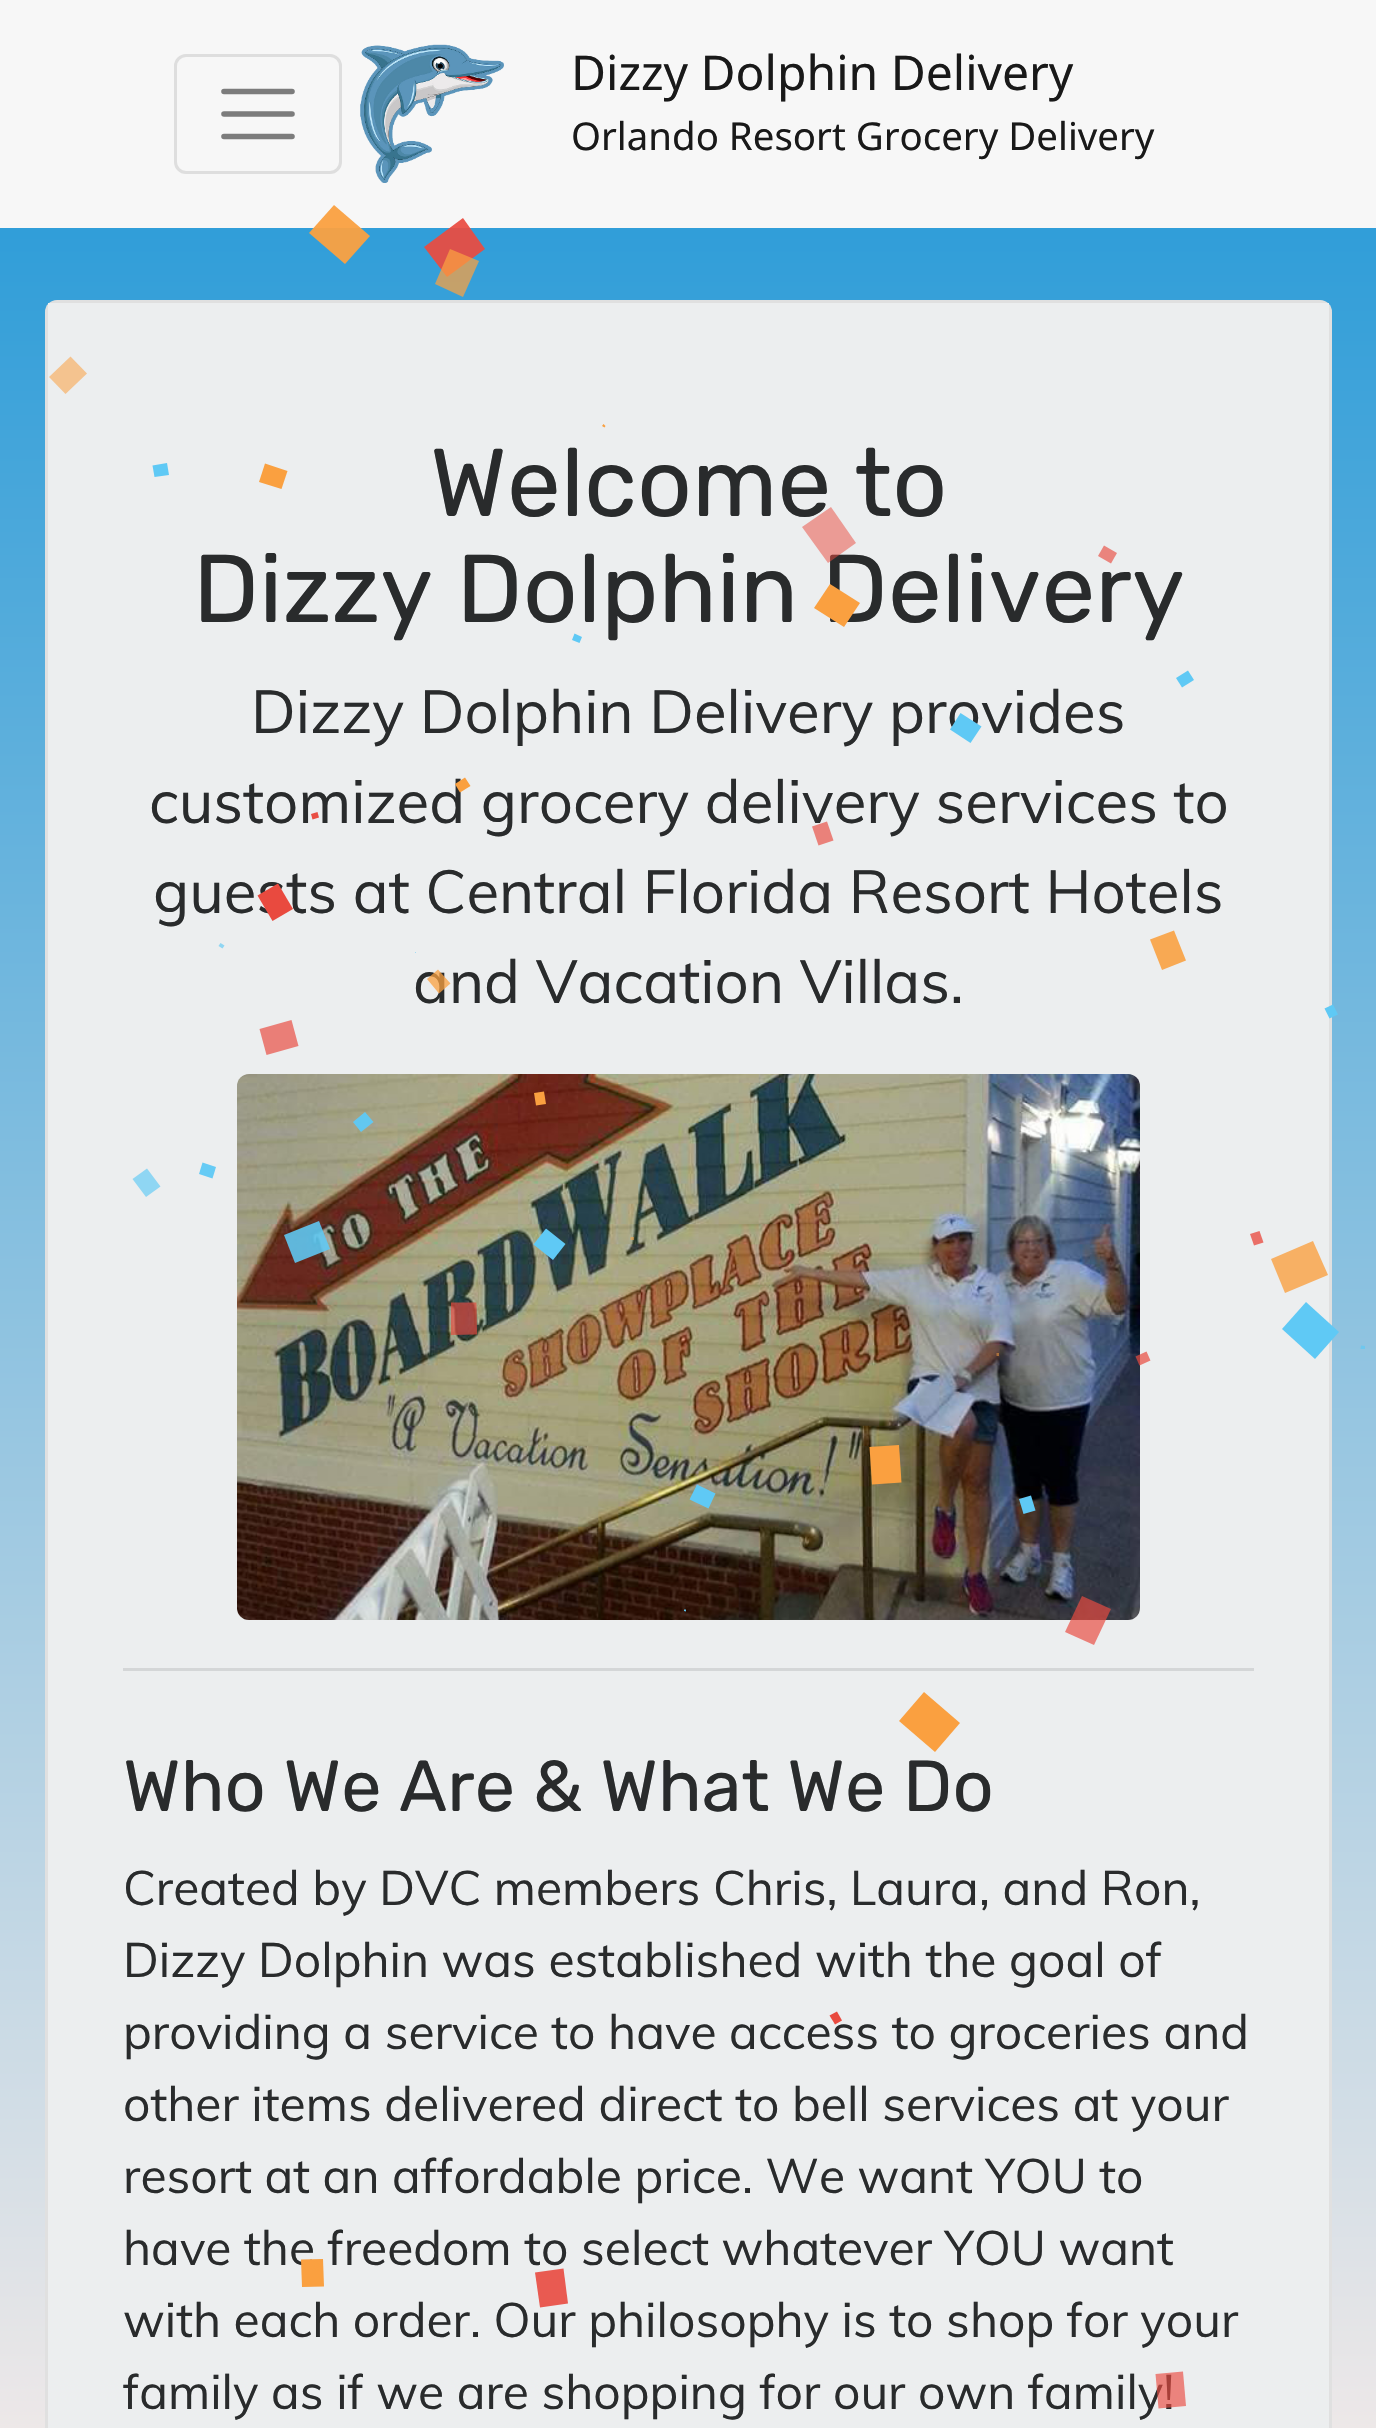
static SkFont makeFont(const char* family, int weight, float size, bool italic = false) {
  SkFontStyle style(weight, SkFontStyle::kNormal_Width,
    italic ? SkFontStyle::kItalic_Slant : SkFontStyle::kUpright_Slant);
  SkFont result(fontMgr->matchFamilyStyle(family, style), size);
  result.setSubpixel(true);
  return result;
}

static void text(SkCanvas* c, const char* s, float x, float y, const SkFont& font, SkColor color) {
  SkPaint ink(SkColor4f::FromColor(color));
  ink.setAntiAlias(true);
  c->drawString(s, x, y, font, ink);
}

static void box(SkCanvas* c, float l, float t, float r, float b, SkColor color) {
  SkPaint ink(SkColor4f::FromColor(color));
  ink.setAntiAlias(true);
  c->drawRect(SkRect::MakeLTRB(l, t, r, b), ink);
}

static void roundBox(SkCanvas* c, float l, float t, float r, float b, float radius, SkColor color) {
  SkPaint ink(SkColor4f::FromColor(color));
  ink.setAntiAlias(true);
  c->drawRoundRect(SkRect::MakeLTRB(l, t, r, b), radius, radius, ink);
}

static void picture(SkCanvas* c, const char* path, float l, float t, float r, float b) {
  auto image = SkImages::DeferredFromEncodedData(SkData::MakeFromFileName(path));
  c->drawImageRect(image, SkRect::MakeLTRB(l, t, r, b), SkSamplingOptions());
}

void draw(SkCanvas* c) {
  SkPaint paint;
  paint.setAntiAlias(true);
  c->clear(0xffffffff);
  {
    const SkColor colors[] = {0xff1d96d7, 0xffede8e8};
    const float stops[] = {0, 1};
    const SkPoint ends[] = {{0, 0}, {0, 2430}};
    paint.setShader(SkGradientShader::MakeLinear(ends, colors, stops, 2, SkTileMode::kClamp));
    paint.setAlpha(255);
  }
  c->drawRect(SkRect::MakeLTRB(0, 228, 1376, 2428), paint);
  box(c, 0, 0, 1376, 228, 0xfff7f7f7);
  paint.setStyle(SkPaint::kStroke_Style);
  paint.setStrokeWidth(3);
  paint.setShader(nullptr);
  paint.setColor(0xffdedede);
  c->drawRoundRect(SkRect::MakeLTRB(175.5f, 55.5f, 340.5f, 172.5f), 10.5f, 10.5f, paint);
  paint.setStrokeWidth(5.6f);
  paint.setStrokeCap(SkPaint::kRound_Cap);
  paint.setColor(0xff7c7c7c);
  c->drawPath(SkPathBuilder().moveTo(224, 91.5f).lineTo(292, 91.5f).moveTo(224, 114).lineTo(292, 114).moveTo(224, 136.5f).lineTo(292, 136.5f).detach(), paint);
  picture(c, "img_01.png", 360, 44, 504, 183);
  SkFont face1 = makeFont("Noto Sans", 400, 48);
  text(c, "Dizzy Dolphin Delivery", 571, 90, face1, 0xff191919);
  SkFont face2 = makeFont("Noto Sans", 400, 38.4f);
  text(c, "Orlando Resort Grocery Delivery", 571, 150, face2, 0xff191919);
  paint.setStyle(SkPaint::kFill_Style);
  paint.setColor(0xf2faa040);
  c->drawPath(SkPathBuilder().moveTo(345, 264).lineTo(309, 233).lineTo(334, 205).lineTo(370, 236).close().detach(), paint);
  paint.setColor(0xede94a3f);
  c->drawPath(SkPathBuilder().moveTo(424, 247).lineTo(463, 218).lineTo(485, 249).lineTo(447, 277).close().detach(), paint);
  paint.setColor(0xbafaa040);
  c->drawPath(SkPathBuilder().moveTo(435, 284).lineTo(450, 249).lineTo(479, 261).lineTo(463, 297).close().detach(), paint);
  roundBox(c, 45, 300, 1332, 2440, 12, 0xffffffff);
  paint.setStyle(SkPaint::kStroke_Style);
  paint.setStrokeWidth(3);
  paint.setStrokeCap(SkPaint::kButt_Cap);
  paint.setColor(0x1f000000);
  c->drawRoundRect(SkRect::MakeLTRB(46.5f, 301.5f, 1330.5f, 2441.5f), 10.5f, 10.5f, paint);
  box(c, 48, 303, 1329, 2428, 0xffeceeef);
  paint.setStyle(SkPaint::kFill_Style);
  paint.setColor(0xfff4c38f);
  c->drawPath(SkPathBuilder().moveTo(87, 373.5f).lineTo(65.5f, 394).lineTo(49, 377).lineTo(70.5f, 356.5f).close().detach(), paint);
  paint.setColor(0xfffaa040);
  c->drawPath(SkPathBuilder().moveTo(604.5f, 427.5f).lineTo(602, 426).lineTo(603.5f, 424).lineTo(605.5f, 426).close().detach(), paint);
  SkFont face3 = makeFont("Rubik", 300, 96);
  text(c, "Welcome to", 430, 516, face3, 0xff292b2c);
  text(c, "Dizzy Dolphin Delivery", 193, 622, face3, 0xff292b2c);
  SkFont face4 = makeFont("Muli", 400, 60);
  text(c, "Dizzy Dolphin Delivery provides", 251, 733, face4, 0xff292b2c);
  text(c, "customized grocery delivery services to", 149, 823, face4, 0xff292b2c);
  text(c, "guests at Central Florida Resort Hotels", 153, 913, face4, 0xff292b2c);
  text(c, "and Vacation Villas.", 413, 1003, face4, 0xff292b2c);
  picture(c, "img_02.png", 237, 1074, 1140, 1620);
  box(c, 123, 1668, 1254, 1671, 0xffd4d6d7);
  SkFont face5 = makeFont("Rubik", 300, 72);
  text(c, "Who We Are & What We Do", 123, 1811, face5, 0xff292b2c);
  SkFont face6 = makeFont("Muli", 400, 48);
  text(c, "Created by DVC members Chris, Laura, and Ron,", 123, 1905, face6, 0xff292b2c);
  text(c, "Dizzy Dolphin was established with the goal of", 123, 1977, face6, 0xff292b2c);
  text(c, "providing a service to have access to groceries and", 123, 2049, face6, 0xff292b2c);
  text(c, "other items delivered direct to bell services at your", 123, 2121, face6, 0xff292b2c);
  text(c, "resort at an affordable price. We want YOU to", 123, 2193, face6, 0xff292b2c);
  text(c, "have the freedom to select whatever YOU want", 123, 2265, face6, 0xff292b2c);
  text(c, "with each order. Our philosophy is to shop for your", 123, 2337, face6, 0xff292b2c);
  text(c, "family as if we are shopping for our own family!", 123, 2409, face6, 0xff292b2c);
  paint.setColor(0xff5fc9f5);
  c->drawPath(SkPathBuilder().moveTo(169, 475).lineTo(154.5f, 477).lineTo(152.5f, 465.5f).lineTo(167, 463).close().detach(), paint);
  paint.setColor(0xfffaa040);
  c->drawPath(SkPathBuilder().moveTo(281.5f, 489).lineTo(259, 482).lineTo(265, 463.5f).lineTo(287.5f, 471).close().detach(), paint);
  paint.setColor(0x82e94a3f);
  c->drawPath(SkPathBuilder().moveTo(831, 507).lineTo(856, 543).lineTo(828, 563).lineTo(802, 527).close().detach(), paint);
  paint.setColor(0xffea847d);
  c->drawPath(SkPathBuilder().moveTo(1111, 563.5f).lineTo(1098, 556).lineTo(1104, 545.5f).lineTo(1117, 553).close().detach(), paint);
  paint.setColor(0xfffaa040);
  c->drawPath(SkPathBuilder().moveTo(844, 627).lineTo(814, 608).lineTo(830, 584).lineTo(860, 603).close().detach(), paint);
  paint.setColor(0xff5fc9f5);
  c->drawPath(SkPathBuilder().moveTo(579.5f, 643).lineTo(572, 640).lineTo(574.5f, 633.5f).lineTo(582, 637).close().detach(), paint);
  c->drawPath(SkPathBuilder().moveTo(1176, 678).lineTo(1188, 670.5f).lineTo(1194, 680).lineTo(1182, 687.5f).close().detach(), paint);
  c->drawPath(SkPathBuilder().moveTo(970.5f, 743).lineTo(950, 729.5f).lineTo(960.5f, 713).lineTo(981.5f, 726.5f).close().detach(), paint);
  paint.setColor(0xfffaa040);
  c->drawPath(SkPathBuilder().moveTo(455, 784).lineTo(465, 777.5f).lineTo(470.5f, 786).lineTo(460, 792.5f).close().detach(), paint);
  paint.setColor(0xffe94e44);
  c->drawPath(SkPathBuilder().moveTo(311, 814).lineTo(317.5f, 812).lineTo(319, 817.5f).lineTo(312.5f, 819.5f).close().detach(), paint);
  paint.setColor(0xffea817a);
  c->drawPath(SkPathBuilder().moveTo(818.5f, 845.5f).lineTo(812, 826.5f).lineTo(827, 821.5f).lineTo(833.5f, 840.5f).close().detach(), paint);
  paint.setColor(0xffe94a3f);
  c->drawPath(SkPathBuilder().moveTo(272.5f, 921).lineTo(257.5f, 895.5f).lineTo(278, 883.5f).lineTo(293, 909).close().detach(), paint);
  paint.setColor(0xff90d6f3);
  c->drawPath(SkPathBuilder().moveTo(220.5f, 943).lineTo(224.5f, 945.5f).lineTo(222.5f, 948.5f).lineTo(218.5f, 946).close().detach(), paint);
  paint.setColor(0xfff8a953);
  c->drawPath(SkPathBuilder().moveTo(1174, 930.5f).lineTo(1186, 960.5f).lineTo(1162, 970).lineTo(1150, 939.5f).close().detach(), paint);
  paint.setColor(0xff5fc9f5);
  c->drawPath(SkPathBuilder().moveTo(415.5f, 953).lineTo(415, 952.5f).lineTo(415, 952).lineTo(416, 952.5f).close().detach(), paint);
  paint.setColor(0xbffaa040);
  c->drawPath(SkPathBuilder().moveTo(439, 993.5f).lineTo(427, 979).lineTo(438, 969.5f).lineTo(450.5f, 983.5f).close().detach(), paint);
  paint.setColor(0xff5fc9f5);
  c->drawPath(SkPathBuilder().moveTo(1333, 1004.5f).lineTo(1338, 1014.5f).lineTo(1329.5f, 1018.5f).lineTo(1324.5f, 1008.5f).close().detach(), paint);
  paint.setColor(0xffea7e77);
  c->drawPath(SkPathBuilder().moveTo(259.5f, 1029).lineTo(291.5f, 1020).lineTo(298.5f, 1046).lineTo(266.5f, 1055).close().detach(), paint);
  paint.setColor(0xfffaa040);
  c->drawPath(SkPathBuilder().moveTo(544, 1091.5f).lineTo(546, 1104).lineTo(536, 1105.5f).lineTo(534, 1093).close().detach(), paint);
  paint.setColor(0xf55fc9f5);
  c->drawPath(SkPathBuilder().moveTo(373.5f, 1122).lineTo(361, 1132).lineTo(353, 1122).lineTo(365, 1112).close().detach(), paint);
  paint.setColor(0xff8fd6f3);
  c->drawPath(SkPathBuilder().moveTo(147, 1168.5f).lineTo(160.5f, 1186.5f).lineTo(146, 1197).lineTo(132.5f, 1179).close().detach(), paint);
  paint.setColor(0xff66cbf5);
  c->drawPath(SkPathBuilder().moveTo(212.5f, 1178.5f).lineTo(199, 1174).lineTo(202.5f, 1162.5f).lineTo(216, 1167).close().detach(), paint);
  paint.setColor(0xe05fc9f5);
  c->drawPath(SkPathBuilder().moveTo(284, 1235).lineTo(319, 1221).lineTo(330, 1249).lineTo(295, 1263).close().detach(), paint);
  paint.setColor(0xff5fc9f5);
  c->drawPath(SkPathBuilder().moveTo(546, 1228.5f).lineTo(565.5f, 1244).lineTo(553, 1260).lineTo(533.5f, 1244.5f).close().detach(), paint);
  paint.setColor(0x8afaa040);
  c->drawPath(SkPathBuilder().moveTo(634, 1240).lineTo(630.5f, 1240).lineTo(630.5f, 1237).lineTo(634, 1237).close().detach(), paint);
  paint.setColor(0xffea6f67);
  c->drawPath(SkPathBuilder().moveTo(1259.5f, 1231).lineTo(1263.5f, 1242.5f).lineTo(1254, 1245.5f).lineTo(1250, 1234).close().detach(), paint);
  paint.setColor(0xfff7b064);
  c->drawPath(SkPathBuilder().moveTo(1271, 1259).lineTo(1313, 1241).lineTo(1328, 1275).lineTo(1285, 1293).close().detach(), paint);
  paint.setColor(0xa8e94a3f);
  c->drawPath(SkPathBuilder().moveTo(476.5f, 1302.5f).lineTo(477, 1334.5f).lineTo(451, 1335).lineTo(451, 1302.5f).close().detach(), paint);
  paint.setColor(0xff5fc9f5);
  c->drawPath(SkPathBuilder().moveTo(1306, 1302).lineTo(1339, 1332).lineTo(1315, 1359).lineTo(1282, 1329).close().detach(), paint);
  paint.setColor(0xff6ec7ee);
  c->drawPath(SkPathBuilder().moveTo(1365, 1349).lineTo(1360.5f, 1349).lineTo(1361, 1345.5f).lineTo(1365, 1346).close().detach(), paint);
  paint.setColor(0x82faa040);
  c->drawPath(SkPathBuilder().moveTo(999, 1353).lineTo(999, 1356).lineTo(996.5f, 1356).lineTo(996.5f, 1353).close().detach(), paint);
  paint.setColor(0xb3e94a3f);
  c->drawPath(SkPathBuilder().moveTo(1150.5f, 1360.5f).lineTo(1139.5f, 1365.5f).lineTo(1135.5f, 1356.5f).lineTo(1146.5f, 1351.5f).close().detach(), paint);
  paint.setColor(0xfffaa040);
  c->drawPath(SkPathBuilder().moveTo(872, 1484.5f).lineTo(869.5f, 1447).lineTo(899, 1445).lineTo(901.5f, 1482.5f).close().detach(), paint);
  paint.setColor(0xff5fc9f5);
  c->drawPath(SkPathBuilder().moveTo(697, 1484.5f).lineTo(715.5f, 1493.5f).lineTo(708.5f, 1508.5f).lineTo(689.5f, 1499.5f).close().detach(), paint);
  c->drawPath(SkPathBuilder().moveTo(1031, 1495.5f).lineTo(1035.5f, 1510.5f).lineTo(1023.5f, 1514).lineTo(1019, 1499).close().detach(), paint);
  paint.setColor(0xf75fc9f5);
  c->drawPath(SkPathBuilder().moveTo(684, 1609.5f).lineTo(686, 1609.5f).lineTo(686, 1611.5f).lineTo(684, 1611).close().detach(), paint);
  paint.setColor(0xade94a3f);
  c->drawPath(SkPathBuilder().moveTo(1111, 1609).lineTo(1094, 1645).lineTo(1065, 1632).lineTo(1082, 1596).close().detach(), paint);
  paint.setColor(0xfffaa040);
  c->drawPath(SkPathBuilder().moveTo(935, 1752).lineTo(899, 1721).lineTo(924, 1692).lineTo(960, 1723).close().detach(), paint);
  paint.setColor(0xffe94a3f);
  c->drawPath(SkPathBuilder().moveTo(837, 2011.5f).lineTo(842, 2020.5f).lineTo(835, 2024.5f).lineTo(829.5f, 2015.5f).close().detach(), paint);
  paint.setColor(0xfffaa040);
  c->drawPath(SkPathBuilder().moveTo(323, 2259).lineTo(324, 2286.5f).lineTo(302, 2287).lineTo(301, 2259.5f).close().detach(), paint);
  paint.setColor(0xffe95a51);
  c->drawPath(SkPathBuilder().moveTo(540, 2307.5f).lineTo(535, 2272.5f).lineTo(563.5f, 2268.5f).lineTo(568, 2303.5f).close().detach(), paint);
  paint.setColor(0xa6e94a3f);
  c->drawPath(SkPathBuilder().moveTo(1158.5f, 2408.5f).lineTo(1155.5f, 2374).lineTo(1183, 2371.5f).lineTo(1186, 2406).close().detach(), paint);
}
